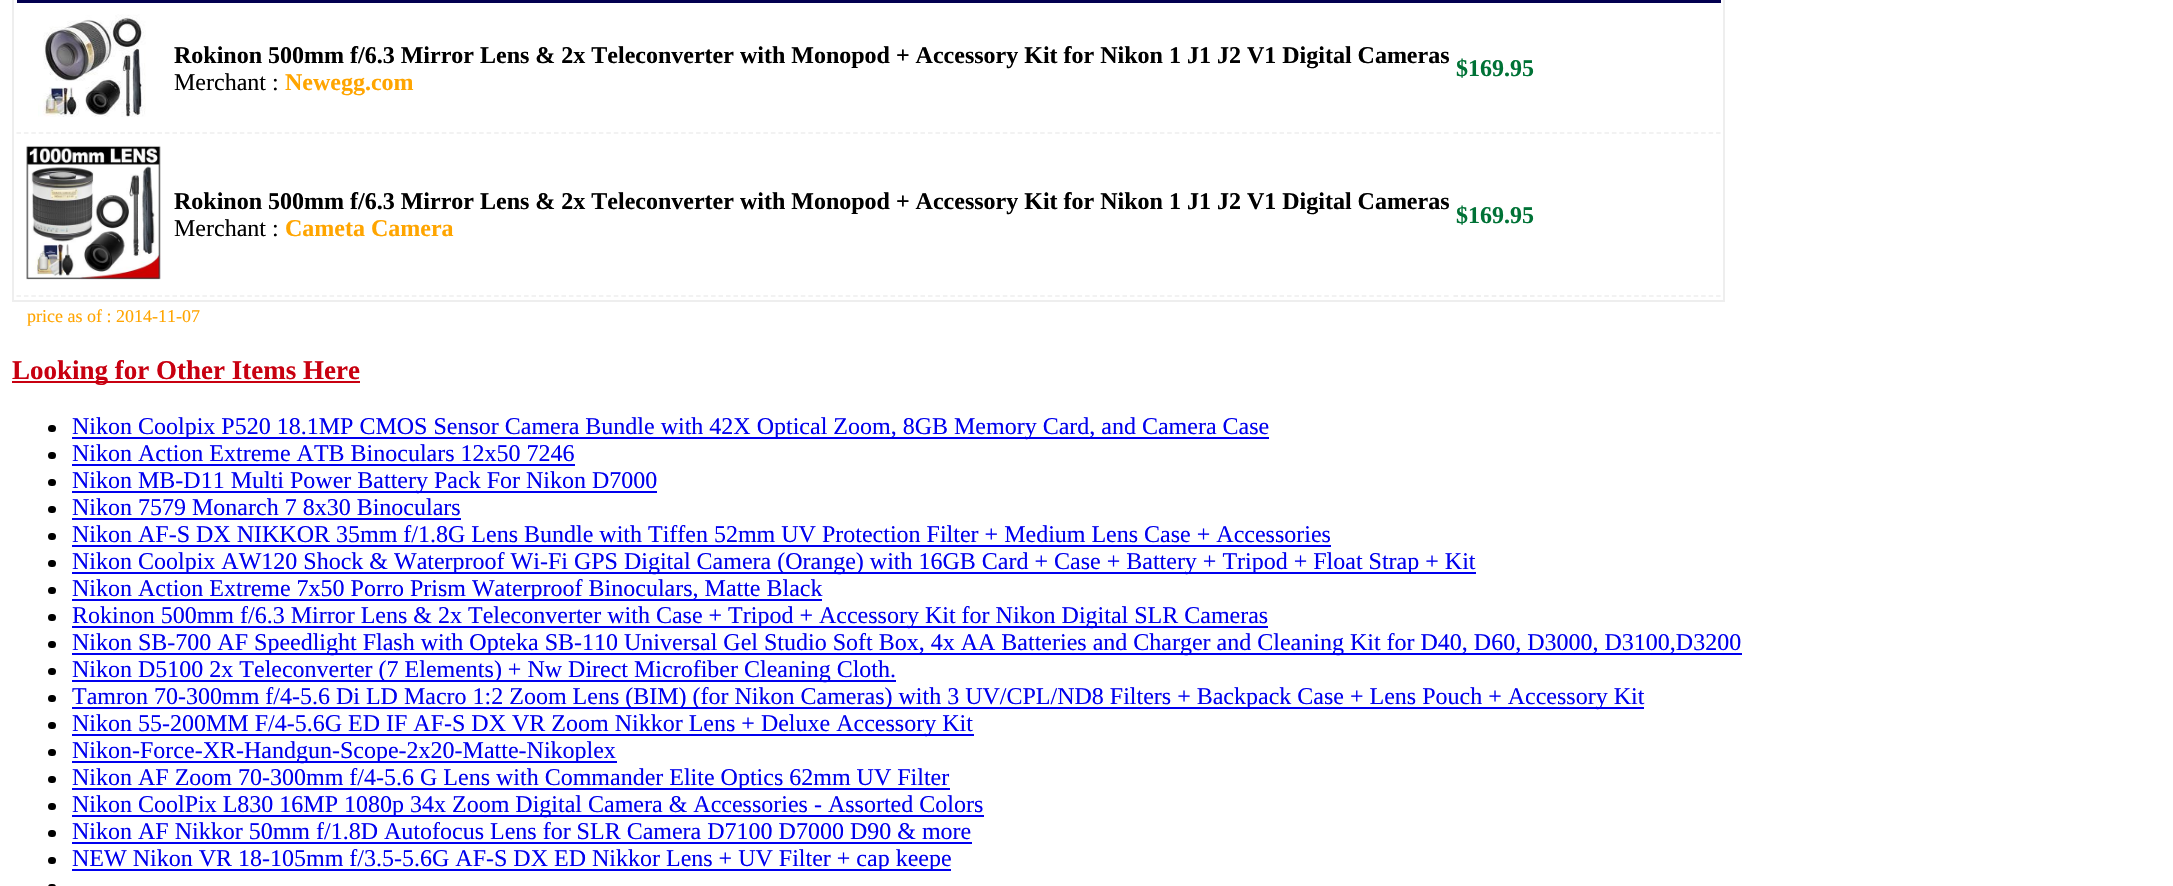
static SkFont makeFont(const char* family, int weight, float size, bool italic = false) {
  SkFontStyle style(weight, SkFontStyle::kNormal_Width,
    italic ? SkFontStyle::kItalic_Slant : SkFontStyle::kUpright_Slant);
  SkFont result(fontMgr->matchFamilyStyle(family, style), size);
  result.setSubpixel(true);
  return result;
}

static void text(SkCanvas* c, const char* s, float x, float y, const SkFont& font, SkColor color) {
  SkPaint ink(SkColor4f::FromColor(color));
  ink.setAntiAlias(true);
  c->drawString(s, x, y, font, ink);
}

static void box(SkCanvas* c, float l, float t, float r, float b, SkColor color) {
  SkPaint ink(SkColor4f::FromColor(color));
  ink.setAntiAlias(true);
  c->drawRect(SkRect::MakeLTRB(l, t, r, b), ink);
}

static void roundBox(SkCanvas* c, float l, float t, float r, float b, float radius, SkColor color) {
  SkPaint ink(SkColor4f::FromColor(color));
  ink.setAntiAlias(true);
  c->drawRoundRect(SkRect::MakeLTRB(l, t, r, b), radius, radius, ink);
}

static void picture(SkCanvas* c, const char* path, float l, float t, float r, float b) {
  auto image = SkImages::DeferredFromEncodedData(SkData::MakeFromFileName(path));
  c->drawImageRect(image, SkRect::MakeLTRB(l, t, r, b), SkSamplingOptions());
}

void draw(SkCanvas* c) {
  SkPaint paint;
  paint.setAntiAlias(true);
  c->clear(0xffffffff);
  paint.setStyle(SkPaint::kStroke_Style);
  paint.setStrokeWidth(2);
  paint.setColor(0xffeeeeee);
  c->drawRect(SkRect::MakeLTRB(13, -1, 1724, 301), paint);
  box(c, 17, 0, 1721, 3, 0xff020050);
  paint.setStrokeWidth(1.5f);
  paint.setPathEffect(SkDashPathEffect::Make({{4.5f, 2.92f}}, 0));
  c->drawPath(SkPathBuilder().moveTo(16.5f, 133).lineTo(169.5f, 133).detach(), paint);
  paint.setPathEffect(nullptr);
  picture(c, "img_01.png", 38, 14, 146, 117);
  paint.setPathEffect(SkDashPathEffect::Make({{4.5f, 2.98f}}, 0));
  c->drawPath(SkPathBuilder().moveTo(172.5f, 133).lineTo(1450.5f, 133).detach(), paint);
  paint.setPathEffect(nullptr);
  SkFont face1 = makeFont("Liberation Serif", 700, 24);
  text(c, "Rokinon 500mm f/6.3 Mirror Lens & 2x Teleconverter with Monopod + Accessory Kit for Nikon 1 J1 J2 V1 Digital Cameras", 174, 63, face1, 0xff000000);
  SkFont face2 = makeFont("Liberation Serif", 400, 24);
  text(c, "Merchant :", 174, 90, face2, 0xff000000);
  text(c, "Newegg.com", 285, 90, face1, 0xffffa500);
  paint.setColor(0xffebebeb);
  paint.setPathEffect(SkDashPathEffect::Make({{4.5f, 3.15f}}, 0));
  c->drawPath(SkPathBuilder().moveTo(1453.5f, 133).lineTo(1534.5f, 133).detach(), paint);
  paint.setPathEffect(nullptr);
  text(c, "$169.95", 1456, 76, face1, 0xff007236);
  paint.setColor(0xffeeeeee);
  paint.setPathEffect(SkDashPathEffect::Make({{4.5f, 2.94f}}, 0));
  c->drawPath(SkPathBuilder().moveTo(1537.5f, 133).lineTo(1720.5f, 133).detach(), paint);
  paint.setPathEffect(nullptr);
  paint.setPathEffect(SkDashPathEffect::Make({{4.5f, 2.92f}}, 0));
  c->drawPath(SkPathBuilder().moveTo(16.5f, 296).lineTo(169.5f, 296).detach(), paint);
  paint.setPathEffect(nullptr);
  picture(c, "img_02.png", 26, 145, 161, 280);
  paint.setPathEffect(SkDashPathEffect::Make({{4.5f, 2.98f}}, 0));
  c->drawPath(SkPathBuilder().moveTo(172.5f, 296).lineTo(1450.5f, 296).detach(), paint);
  paint.setPathEffect(nullptr);
  text(c, "Rokinon 500mm f/6.3 Mirror Lens & 2x Teleconverter with Monopod + Accessory Kit for Nikon 1 J1 J2 V1 Digital Cameras", 174, 209, face1, 0xff000000);
  text(c, "Merchant :", 174, 236, face2, 0xff000000);
  text(c, "Cameta Camera", 285, 236, face1, 0xffffa500);
  paint.setColor(0xffebebeb);
  paint.setPathEffect(SkDashPathEffect::Make({{4.5f, 3.15f}}, 0));
  c->drawPath(SkPathBuilder().moveTo(1453.5f, 296).lineTo(1534.5f, 296).detach(), paint);
  paint.setPathEffect(nullptr);
  text(c, "$169.95", 1456, 223, face1, 0xff007236);
  paint.setColor(0xffeeeeee);
  paint.setPathEffect(SkDashPathEffect::Make({{4.5f, 2.94f}}, 0));
  c->drawPath(SkPathBuilder().moveTo(1537.5f, 296).lineTo(1720.5f, 296).detach(), paint);
  paint.setPathEffect(nullptr);
  SkFont face3 = makeFont("Liberation Serif", 400, 18);
  text(c, "price as of : 2014-11-07", 27, 322, face3, 0xffffa500);
  box(c, 12, 381, 360, 383, 0xffc80010);
  SkFont face4 = makeFont("Liberation Serif", 700, 27);
  text(c, "Looking for Other Items Here", 12, 379, face4, 0xffc80010);
  roundBox(c, 48, 425, 56, 432, 3.5f, 0xff000000);
  box(c, 72, 437, 1269, 439, 0xff0000ee);
  text(c, "Nikon Coolpix P520 18.1MP CMOS Sensor Camera Bundle with 42X Optical Zoom, 8GB Memory Card, and Camera Case", 72, 434, face2, 0xff0000ee);
  roundBox(c, 48, 452, 56, 459, 3.5f, 0xff000000);
  text(c, "Nikon Action Extreme ATB Binoculars 12x50 7246", 72, 461, face2, 0xff0000ee);
  box(c, 72, 464, 575, 466, 0xff0000ee);
  roundBox(c, 48, 479, 56, 486, 3.5f, 0xff000000);
  box(c, 72, 491, 657, 493, 0xff0000ee);
  text(c, "Nikon MB-D11 Multi Power Battery Pack For Nikon D7000", 72, 488, face2, 0xff0000ee);
  roundBox(c, 48, 506, 56, 513, 3.5f, 0xff000000);
  text(c, "Nikon 7579 Monarch 7 8x30 Binoculars", 72, 515, face2, 0xff0000ee);
  box(c, 72, 518, 461, 520, 0xff0000ee);
  roundBox(c, 48, 533, 56, 540, 3.5f, 0xff000000);
  text(c, "Nikon AF-S DX NIKKOR 35mm f/1.8G Lens Bundle with Tiffen 52mm UV Protection Filter + Medium Lens Case + Accessories", 72, 542, face2, 0xff0000ee);
  box(c, 72, 545, 1331, 547, 0xff0000ee);
  roundBox(c, 48, 560, 56, 567, 3.5f, 0xff000000);
  box(c, 72, 572, 1476, 574, 0xff0000ee);
  text(c, "Nikon Coolpix AW120 Shock & Waterproof Wi-Fi GPS Digital Camera (Orange) with 16GB Card + Case + Battery + Tripod + Float Strap + Kit", 72, 569, face2, 0xff0000ee);
  roundBox(c, 48, 587, 56, 594, 3.5f, 0xff000000);
  box(c, 72, 599, 822, 601, 0xff0000ee);
  text(c, "Nikon Action Extreme 7x50 Porro Prism Waterproof Binoculars, Matte Black", 72, 596, face2, 0xff0000ee);
  roundBox(c, 48, 614, 56, 621, 3.5f, 0xff000000);
  box(c, 72, 626, 1268, 628, 0xff0000ee);
  text(c, "Rokinon 500mm f/6.3 Mirror Lens & 2x Teleconverter with Case + Tripod + Accessory Kit for Nikon Digital SLR Cameras", 72, 623, face2, 0xff0000ee);
  roundBox(c, 48, 641, 56, 648, 3.5f, 0xff000000);
  box(c, 72, 653, 1742, 655, 0xff0000ee);
  text(c, "Nikon SB-700 AF Speedlight Flash with Opteka SB-110 Universal Gel Studio Soft Box, 4x AA Batteries and Charger and Cleaning Kit for D40, D60, D3000, D3100,D3200", 72, 650, face2, 0xff0000ee);
  roundBox(c, 48, 668, 56, 675, 3.5f, 0xff000000);
  box(c, 72, 680, 896, 682, 0xff0000ee);
  text(c, "Nikon D5100 2x Teleconverter (7 Elements) + Nw Direct Microfiber Cleaning Cloth.", 72, 677, face2, 0xff0000ee);
  roundBox(c, 48, 695, 56, 702, 3.5f, 0xff000000);
  box(c, 72, 707, 1644, 709, 0xff0000ee);
  text(c, "Tamron 70-300mm f/4-5.6 Di LD Macro 1:2 Zoom Lens (BIM) (for Nikon Cameras) with 3 UV/CPL/ND8 Filters + Backpack Case + Lens Pouch + Accessory Kit", 72, 704, face2, 0xff0000ee);
  roundBox(c, 48, 722, 56, 729, 3.5f, 0xff000000);
  box(c, 72, 734, 974, 736, 0xff0000ee);
  text(c, "Nikon 55-200MM F/4-5.6G ED IF AF-S DX VR Zoom Nikkor Lens + Deluxe Accessory Kit", 72, 731, face2, 0xff0000ee);
  roundBox(c, 48, 749, 56, 756, 3.5f, 0xff000000);
  box(c, 72, 761, 617, 763, 0xff0000ee);
  text(c, "Nikon-Force-XR-Handgun-Scope-2x20-Matte-Nikoplex", 72, 758, face2, 0xff0000ee);
  roundBox(c, 48, 776, 56, 783, 3.5f, 0xff000000);
  box(c, 72, 788, 950, 790, 0xff0000ee);
  text(c, "Nikon AF Zoom 70-300mm f/4-5.6 G Lens with Commander Elite Optics 62mm UV Filter", 72, 785, face2, 0xff0000ee);
  roundBox(c, 48, 803, 56, 810, 3.5f, 0xff000000);
  box(c, 72, 815, 984, 817, 0xff0000ee);
  text(c, "Nikon CoolPix L830 16MP 1080p 34x Zoom Digital Camera & Accessories - Assorted Colors", 72, 812, face2, 0xff0000ee);
  roundBox(c, 48, 830, 56, 837, 3.5f, 0xff000000);
  text(c, "Nikon AF Nikkor 50mm f/1.8D Autofocus Lens for SLR Camera D7100 D7000 D90 & more", 72, 839, face2, 0xff0000ee);
  box(c, 72, 842, 972, 844, 0xff0000ee);
  roundBox(c, 48, 857, 56, 864, 3.5f, 0xff000000);
  box(c, 72, 869, 951, 871, 0xff0000ee);
  text(c, "NEW Nikon VR 18-105mm f/3.5-5.6G AF-S DX ED Nikkor Lens + UV Filter + cap keepe", 72, 866, face2, 0xff0000ee);
  roundBox(c, 48, 884, 56, 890, 3.5f, 0xff000000);
}
